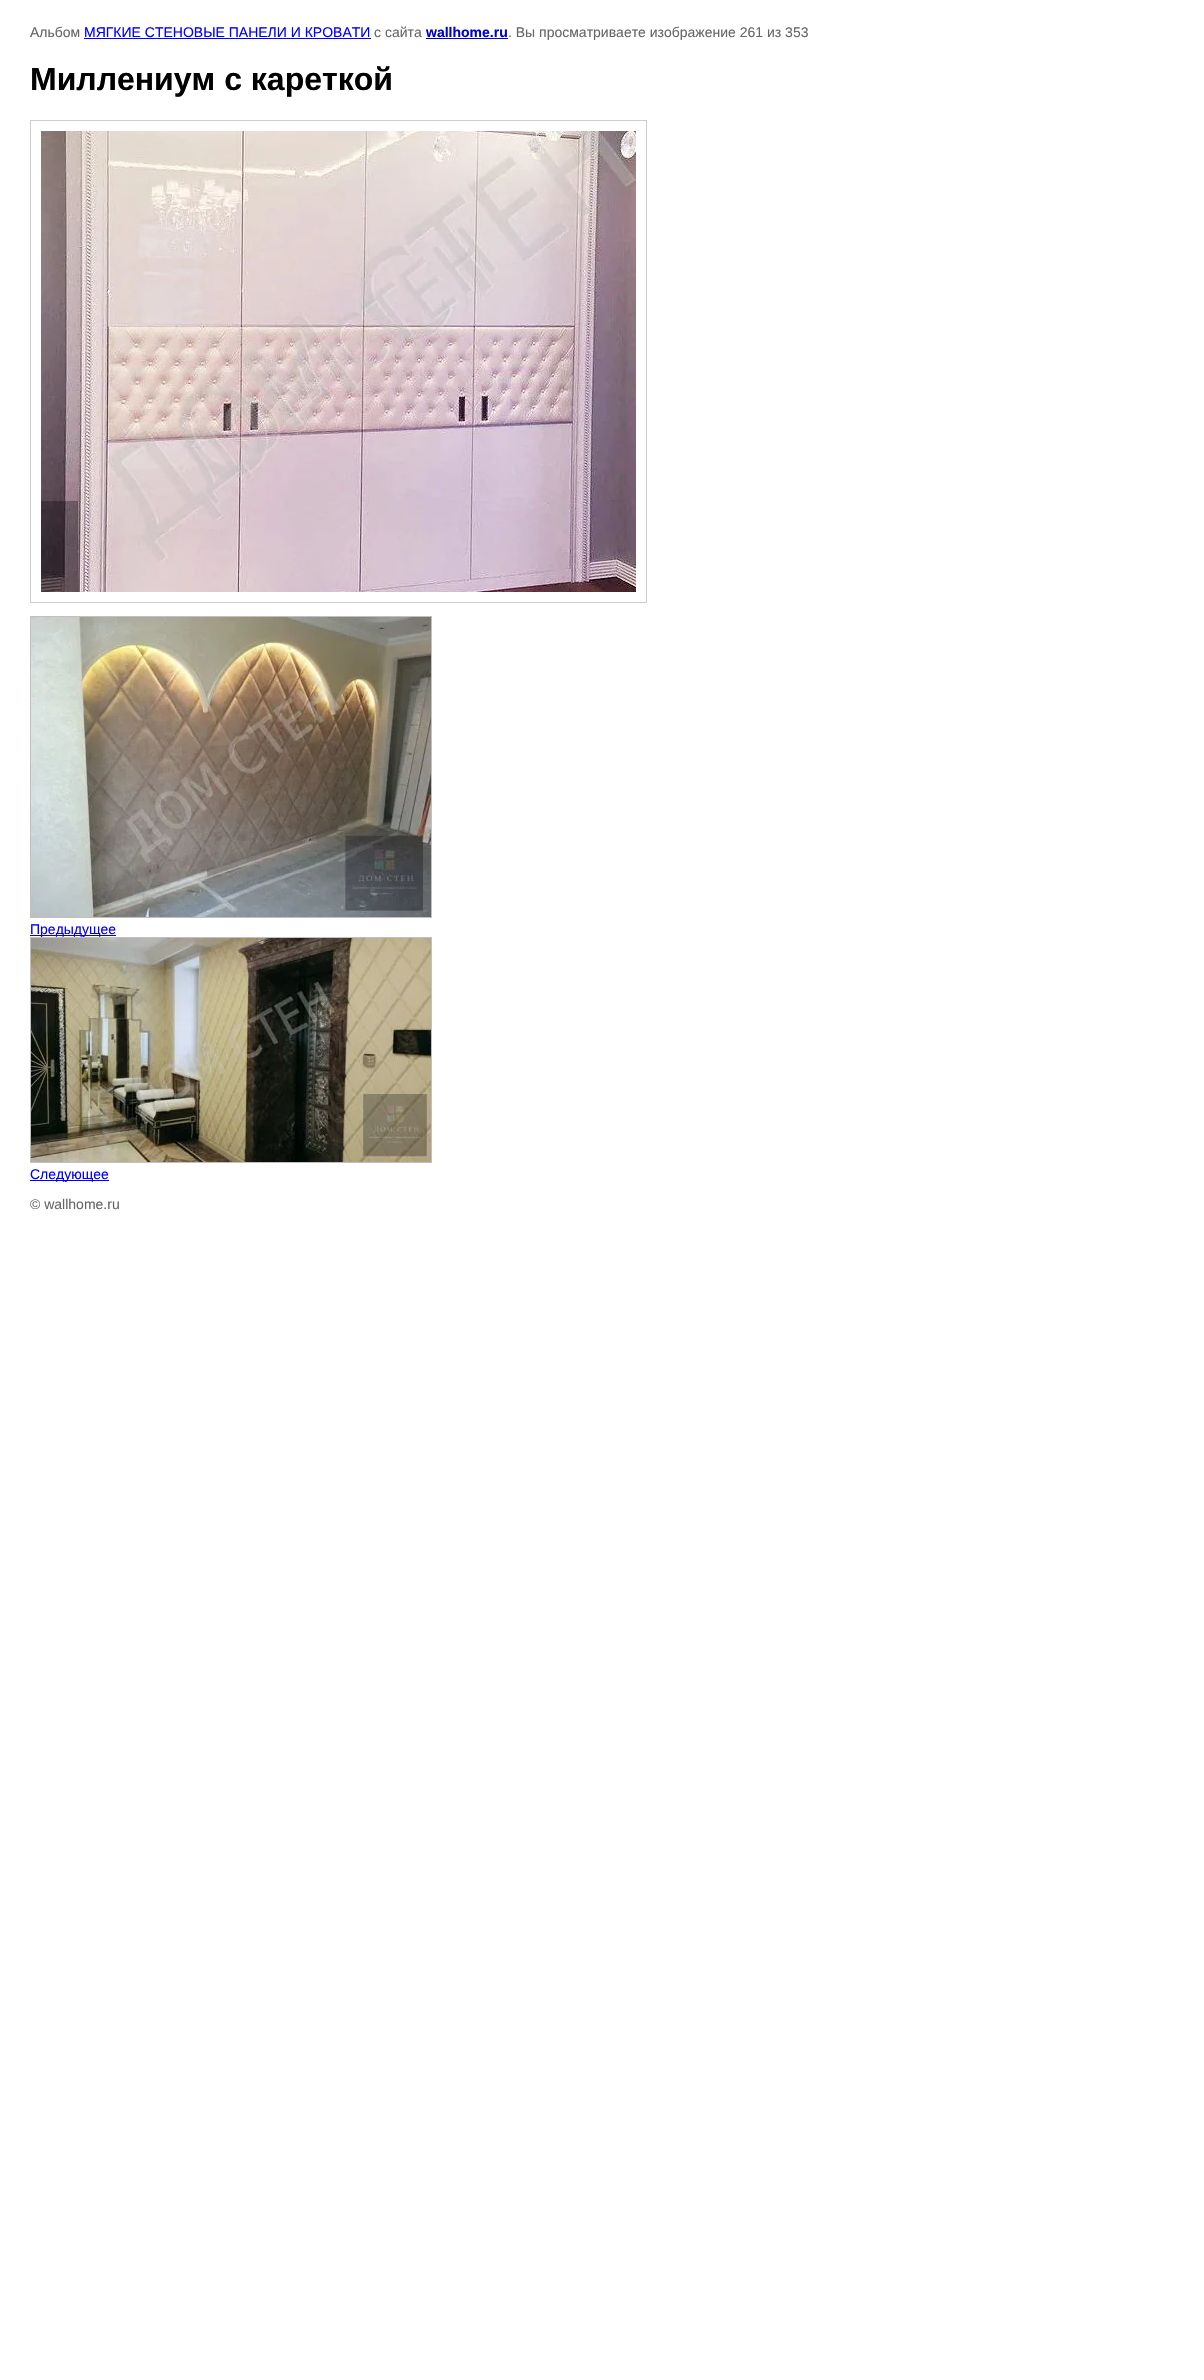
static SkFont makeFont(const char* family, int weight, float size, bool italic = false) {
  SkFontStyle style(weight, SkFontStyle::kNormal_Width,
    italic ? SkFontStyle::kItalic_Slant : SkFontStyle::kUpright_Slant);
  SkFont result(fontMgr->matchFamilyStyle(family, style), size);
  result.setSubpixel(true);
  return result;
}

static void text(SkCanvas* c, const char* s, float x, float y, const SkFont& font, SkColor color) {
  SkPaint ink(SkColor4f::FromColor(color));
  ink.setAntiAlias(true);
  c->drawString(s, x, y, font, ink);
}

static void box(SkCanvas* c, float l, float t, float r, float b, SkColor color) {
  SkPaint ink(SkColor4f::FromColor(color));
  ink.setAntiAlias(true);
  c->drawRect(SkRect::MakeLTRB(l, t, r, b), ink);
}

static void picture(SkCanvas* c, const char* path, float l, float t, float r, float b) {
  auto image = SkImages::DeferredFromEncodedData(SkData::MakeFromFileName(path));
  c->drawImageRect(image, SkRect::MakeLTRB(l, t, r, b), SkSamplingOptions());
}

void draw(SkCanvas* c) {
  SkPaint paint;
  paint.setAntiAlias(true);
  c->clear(0xffffffff);
  SkFont face1 = makeFont("Liberation Sans", 400, 14);
  text(c, "Альбом", 30, 37, face1, 0xff666666);
  text(c, "МЯГКИЕ СТЕНОВЫЕ ПАНЕЛИ И КРОВАТИ", 84, 37, face1, 0xff0000ff);
  box(c, 84, 38, 371, 39, 0xff0000ff);
  text(c, "с сайта", 374, 37, face1, 0xff666666);
  SkFont face2 = makeFont("Liberation Sans", 700, 14);
  text(c, "wallhome.ru", 426, 37, face2, 0xff0000cc);
  box(c, 426, 38, 508, 39, 0xff0000cc);
  text(c, ". Вы просматриваете изображение 261 из 353", 508, 37, face1, 0xff666666);
  SkFont face3 = makeFont("Liberation Sans", 700, 32);
  text(c, "Миллениум с кареткой", 30, 90, face3, 0xff000000);
  paint.setStyle(SkPaint::kStroke_Style);
  paint.setStrokeWidth(1);
  paint.setColor(0xffcccccc);
  c->drawRect(SkRect::MakeLTRB(30.5f, 120.5f, 646.5f, 602.5f), paint);
  picture(c, "img_01.png", 41, 131, 636, 592);
  paint.setColor(0xffc0c0c0);
  c->drawRect(SkRect::MakeLTRB(30.5f, 616.5f, 431.5f, 917.5f), paint);
  picture(c, "img_02.png", 31, 617, 431, 917);
  box(c, 30, 935, 116, 936, 0xff0000ff);
  text(c, "Предыдущее", 30, 934, face1, 0xff0000ff);
  c->drawRect(SkRect::MakeLTRB(30.5f, 937.5f, 431.5f, 1162.5f), paint);
  picture(c, "img_03.png", 31, 938, 431, 1162);
  box(c, 30, 1180, 109, 1181, 0xff0000ff);
  text(c, "Следующее", 30, 1179, face1, 0xff0000ff);
  text(c, "© wallhome.ru", 30, 1209, face1, 0xff666666);
}
